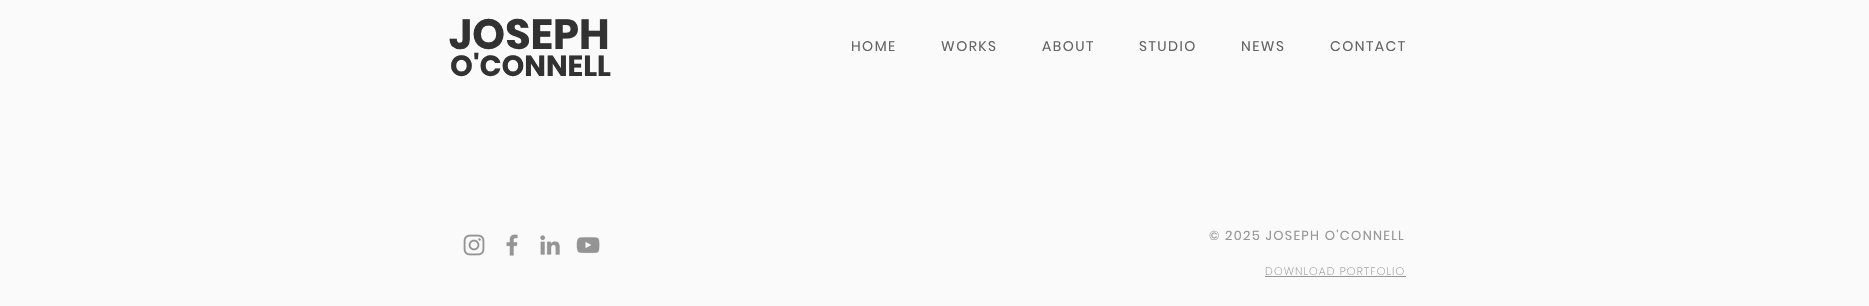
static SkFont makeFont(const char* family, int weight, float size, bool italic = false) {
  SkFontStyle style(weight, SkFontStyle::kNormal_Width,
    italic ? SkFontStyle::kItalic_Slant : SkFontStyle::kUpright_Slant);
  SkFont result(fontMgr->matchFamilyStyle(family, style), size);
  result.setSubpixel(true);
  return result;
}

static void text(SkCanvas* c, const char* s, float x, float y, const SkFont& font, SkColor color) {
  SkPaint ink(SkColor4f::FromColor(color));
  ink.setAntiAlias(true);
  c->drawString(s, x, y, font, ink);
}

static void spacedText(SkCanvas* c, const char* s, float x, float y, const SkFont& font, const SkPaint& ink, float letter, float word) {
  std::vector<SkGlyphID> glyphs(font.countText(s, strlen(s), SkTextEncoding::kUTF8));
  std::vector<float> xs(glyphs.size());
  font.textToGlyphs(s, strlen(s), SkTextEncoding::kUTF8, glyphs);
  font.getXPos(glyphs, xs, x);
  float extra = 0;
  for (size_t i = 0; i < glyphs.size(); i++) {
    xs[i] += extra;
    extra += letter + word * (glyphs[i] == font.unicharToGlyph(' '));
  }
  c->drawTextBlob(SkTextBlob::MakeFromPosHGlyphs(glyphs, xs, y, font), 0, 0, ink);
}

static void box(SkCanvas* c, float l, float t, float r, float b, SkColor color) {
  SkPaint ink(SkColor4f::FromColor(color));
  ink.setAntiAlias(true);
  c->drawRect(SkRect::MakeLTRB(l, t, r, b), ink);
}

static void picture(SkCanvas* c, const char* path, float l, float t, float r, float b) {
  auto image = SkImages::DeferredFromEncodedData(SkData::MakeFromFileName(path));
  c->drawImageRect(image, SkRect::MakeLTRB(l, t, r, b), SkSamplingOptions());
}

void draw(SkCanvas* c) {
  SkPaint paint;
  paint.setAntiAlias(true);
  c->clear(0xfffafafa);
  SkFont face1 = makeFont("Poppins", 700, 42);
  text(c, "JOSEPH", 449, 49, face1, 0xff323232);
  SkFont face2 = makeFont("Poppins", 700, 29);
  text(c, "O'CONNELL", 450, 76, face2, 0xff323232);
  SkFont face3 = makeFont("Poppins", 400, 14);
  paint.setColor(0xff646464);
  spacedText(c, "HOME", 851, 51, face3, paint, 1.5f, 0);
  spacedText(c, "WORKS", 941, 51, face3, paint, 1.5f, 0);
  spacedText(c, "ABOUT", 1042, 51, face3, paint, 1.5f, 0);
  spacedText(c, "STUDIO", 1139, 51, face3, paint, 1.5f, 0);
  spacedText(c, "NEWS", 1241, 51, face3, paint, 1.5f, 0);
  spacedText(c, "CONTACT", 1330, 51, face3, paint, 1.5f, 0);
  picture(c, "img_01.png", 463, 234, 485, 256);
  picture(c, "img_02.png", 506, 234, 518, 256);
  picture(c, "img_03.png", 540, 235, 560, 255);
  picture(c, "img_04.png", 576, 237, 600, 254);
  SkFont face4 = makeFont("Poppins", 400, 13);
  paint.setColor(0xff969696);
  spacedText(c, "© 2025 JOSEPH O'CONNELL", 1209, 240, face4, paint, 1.3f, 0);
  SkFont face5 = makeFont("Poppins", 200, 11);
  spacedText(c, "DOWNLOAD PORTFOLIO", 1265, 275, face5, paint, 1.1f, 0);
  box(c, 1265, 276, 1406, 277, 0xff969696);
}
